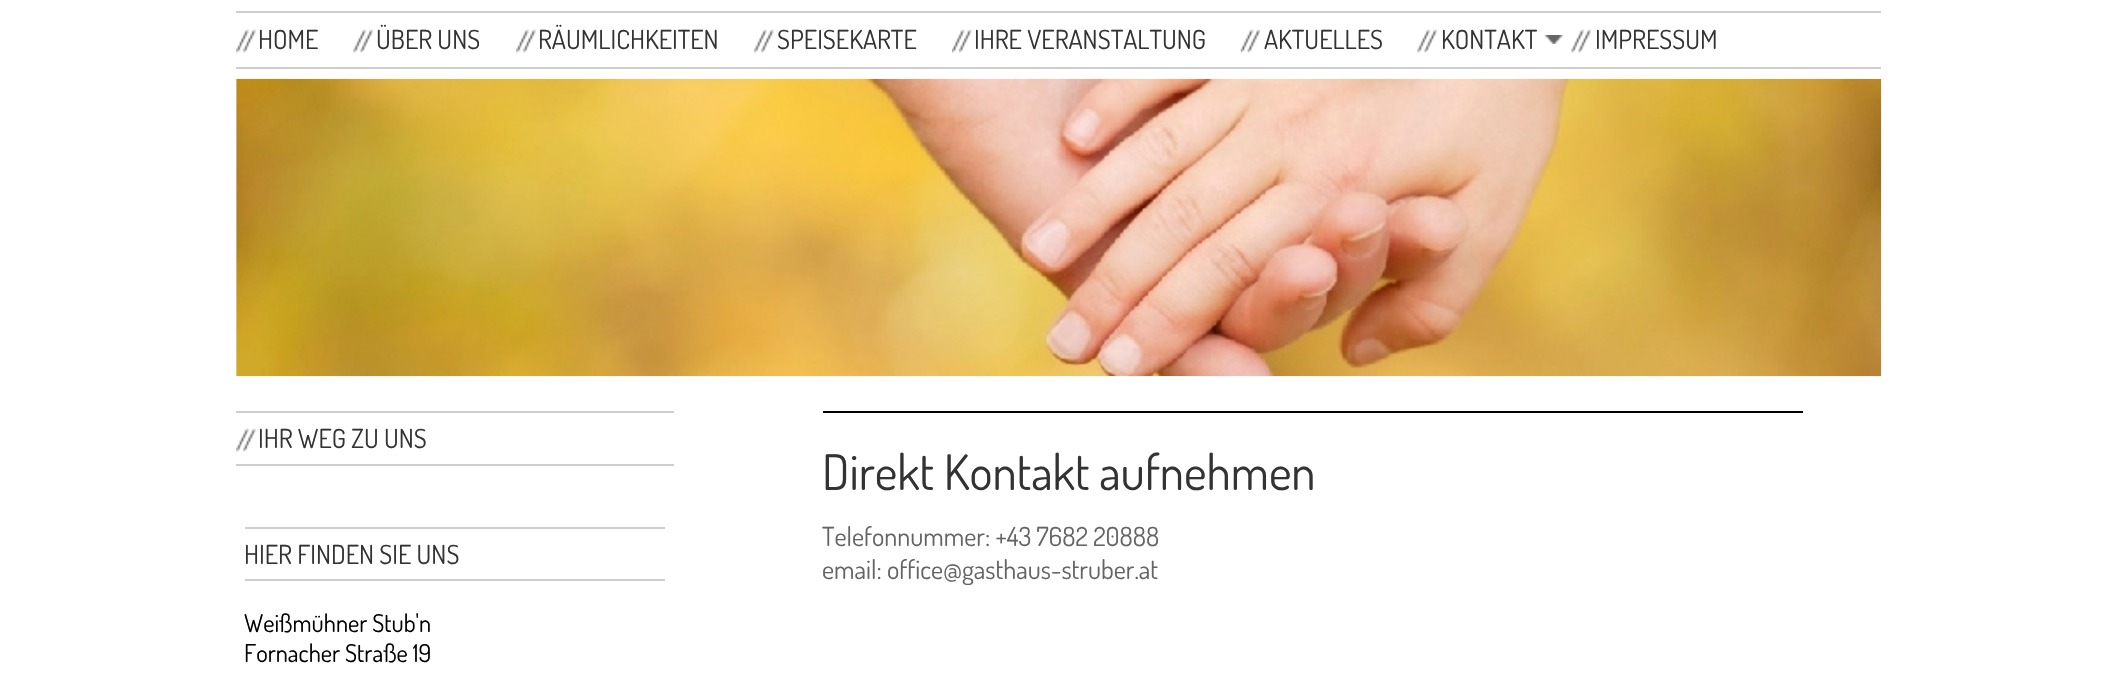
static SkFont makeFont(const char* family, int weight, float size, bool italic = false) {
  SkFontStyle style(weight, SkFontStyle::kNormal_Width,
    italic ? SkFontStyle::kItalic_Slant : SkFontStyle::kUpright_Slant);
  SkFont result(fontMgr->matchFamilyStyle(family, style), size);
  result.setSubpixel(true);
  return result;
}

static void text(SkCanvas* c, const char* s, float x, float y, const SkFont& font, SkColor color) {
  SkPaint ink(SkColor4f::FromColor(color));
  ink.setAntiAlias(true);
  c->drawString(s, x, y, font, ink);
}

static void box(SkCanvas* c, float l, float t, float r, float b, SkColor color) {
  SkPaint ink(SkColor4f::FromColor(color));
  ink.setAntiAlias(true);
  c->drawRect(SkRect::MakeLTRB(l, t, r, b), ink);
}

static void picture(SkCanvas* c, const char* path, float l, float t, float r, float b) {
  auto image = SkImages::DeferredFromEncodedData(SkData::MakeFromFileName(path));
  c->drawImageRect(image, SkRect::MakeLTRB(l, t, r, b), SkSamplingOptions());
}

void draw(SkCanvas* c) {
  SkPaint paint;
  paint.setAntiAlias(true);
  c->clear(0xffffffff);
  box(c, 236, 11, 1881, 13, 0xffcecece);
  box(c, 236, 67, 1881, 69, 0xffcecece);
  picture(c, "img_01.png", 236, 29, 256, 53);
  SkFont face1 = makeFont("Dosis", 400, 26.25f);
  text(c, "HOME", 258, 49, face1, 0xff333333);
  picture(c, "img_02.png", 353, 29, 373, 53);
  text(c, "ÜBER UNS", 376, 49, face1, 0xff333333);
  picture(c, "img_01.png", 516, 29, 536, 53);
  text(c, "RÄUMLICHKEITEN", 538, 49, face1, 0xff333333);
  picture(c, "img_03.png", 754, 29, 774, 53);
  text(c, "SPEISEKARTE", 777, 49, face1, 0xff333333);
  picture(c, "img_04.png", 952, 29, 972, 53);
  text(c, "IHRE VERANSTALTUNG", 974, 49, face1, 0xff333333);
  picture(c, "img_05.png", 1240, 29, 1260, 53);
  text(c, "AKTUELLES", 1264, 49, face1, 0xff333333);
  picture(c, "img_02.png", 1417, 29, 1437, 53);
  text(c, "KONTAKT", 1441, 49, face1, 0xff333333);
  picture(c, "img_06.png", 1545, 35, 1563, 44);
  picture(c, "img_07.png", 1571, 29, 1591, 53);
  text(c, "IMPRESSUM", 1595, 49, face1, 0xff333333);
  box(c, 236, 79, 237, 376, 0xffeeeeee);
  picture(c, "img_08.png", 236, 78, 1882, 377);
  box(c, 236, 411, 674, 413, 0xffcecece);
  box(c, 236, 464, 674, 466, 0xffcecece);
  picture(c, "img_01.png", 236, 428, 256, 452);
  text(c, "IHR WEG ZU UNS", 258, 448, face1, 0xff333333);
  box(c, 245, 527, 665, 529, 0xffcecece);
  box(c, 245, 579, 665, 581, 0xffcecece);
  text(c, "HIER FINDEN SIE UNS", 244, 564, face1, 0xff333333);
  SkFont face2 = makeFont("Dosis", 400, 24.5f);
  text(c, "Weißmühner Stub'n", 244, 632, face2, 0xff000000);
  text(c, "Fornacher Straße 19", 244, 662, face2, 0xff000000);
  box(c, 823, 411, 1803, 413, 0xff000000);
  SkFont face3 = makeFont("Dosis", 400, 49);
  text(c, "Direkt Kontakt aufnehmen", 822, 490, face3, 0xff333333);
  text(c, "Telefonnummer: +43 7682 20888", 822, 546, face1, 0xff646464);
  text(c, "email: office@gasthaus-struber.at", 822, 579, face1, 0xff646464);
}
